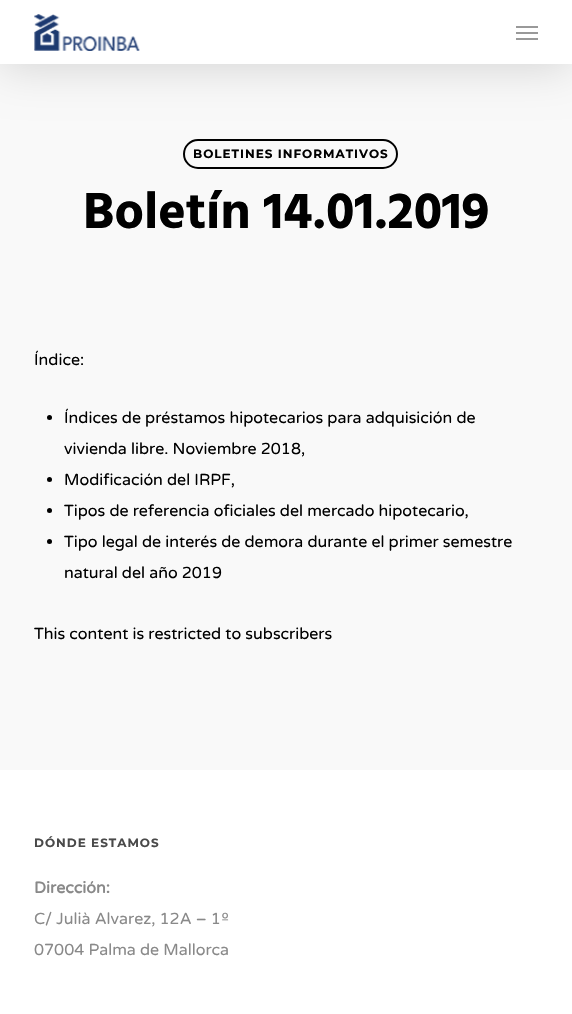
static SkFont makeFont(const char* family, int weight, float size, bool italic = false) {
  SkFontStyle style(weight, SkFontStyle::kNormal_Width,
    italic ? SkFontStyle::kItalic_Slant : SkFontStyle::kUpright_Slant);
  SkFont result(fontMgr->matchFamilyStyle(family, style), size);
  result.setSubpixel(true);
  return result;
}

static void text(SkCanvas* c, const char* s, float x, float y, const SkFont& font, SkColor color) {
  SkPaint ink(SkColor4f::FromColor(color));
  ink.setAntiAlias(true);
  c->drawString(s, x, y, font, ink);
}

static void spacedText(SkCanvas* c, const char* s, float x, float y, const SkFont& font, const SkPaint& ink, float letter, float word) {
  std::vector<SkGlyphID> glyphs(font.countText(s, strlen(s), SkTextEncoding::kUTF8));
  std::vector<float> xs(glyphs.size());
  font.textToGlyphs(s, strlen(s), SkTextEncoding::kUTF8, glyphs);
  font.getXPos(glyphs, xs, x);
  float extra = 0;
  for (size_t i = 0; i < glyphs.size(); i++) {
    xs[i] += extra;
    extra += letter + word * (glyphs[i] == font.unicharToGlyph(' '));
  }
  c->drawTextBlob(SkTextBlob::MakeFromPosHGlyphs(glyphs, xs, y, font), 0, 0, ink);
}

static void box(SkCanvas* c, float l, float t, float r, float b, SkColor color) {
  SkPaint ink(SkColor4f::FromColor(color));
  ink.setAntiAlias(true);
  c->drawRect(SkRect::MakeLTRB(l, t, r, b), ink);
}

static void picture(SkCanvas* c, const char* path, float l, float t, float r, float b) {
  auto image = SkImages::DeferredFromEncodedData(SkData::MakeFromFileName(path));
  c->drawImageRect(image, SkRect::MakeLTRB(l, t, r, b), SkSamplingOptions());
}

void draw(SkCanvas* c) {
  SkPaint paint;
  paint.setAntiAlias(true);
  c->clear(0xfff9f9f9);
  paint.setColor(0x26000000);
  paint.setMaskFilter(SkMaskFilter::MakeBlur(kNormal_SkBlurStyle, 22.5f));
  c->drawRect(SkRect::MakeLTRB(0, 3, 572, 67), paint);
  paint.setMaskFilter(nullptr);
  box(c, 0, 0, 572, 64, 0xffffffff);
  picture(c, "img_01.png", 34, 14, 140, 51);
  box(c, 516, 26, 538, 28, 0xff999999);
  box(c, 516, 38, 538, 40, 0xff999999);
  box(c, 516, 32, 538, 34, 0xff999999);
  paint.setStyle(SkPaint::kStroke_Style);
  paint.setStrokeWidth(2);
  paint.setColor(0xff000000);
  c->drawRoundRect(SkRect::MakeLTRB(184, 140, 397, 168), 14, 14, paint);
  SkFont face1 = makeFont("Montserrat", 100, 12);
  paint.setStyle(SkPaint::kFill_Style);
  spacedText(c, "BOLETINES INFORMATIVOS", 193, 158, face1, paint, 1, 0);
  SkFont face2 = makeFont("Hind", 700, 52);
  text(c, "Boletín 14.01.2019", 83, 228, face2, 0xff000000);
  SkFont face3 = makeFont("Varela Round", 400, 16);
  text(c, "Índice:", 34, 365, face3, 0xff000000);
  c->drawCircle(49.5f, 417.5f, 2.5f, paint);
  text(c, "Índices de préstamos hipotecarios para adquisición de", 64, 423, face3, 0xff000000);
  text(c, "vivienda libre. Noviembre 2018,", 64, 454, face3, 0xff000000);
  c->drawCircle(49.5f, 479.5f, 2.5f, paint);
  text(c, "Modificación del IRPF,", 64, 485, face3, 0xff000000);
  c->drawCircle(49.5f, 510.5f, 2.5f, paint);
  text(c, "Tipos de referencia oficiales del mercado hipotecario,", 64, 516, face3, 0xff000000);
  c->drawCircle(49.5f, 541.5f, 2.5f, paint);
  text(c, "Tipo legal de interés de demora durante el primer semestre", 64, 547, face3, 0xff000000);
  text(c, "natural del año 2019", 64, 578, face3, 0xff000000);
  text(c, "This content is restricted to subscribers", 34, 639, face3, 0xff000000);
  box(c, 0, 770, 572, 1014, 0xffffffff);
  paint.setColor(0xff494949);
  spacedText(c, "DÓNDE ESTAMOS", 34, 847, face1, paint, 1, 0);
  SkFont face4 = makeFont("Varela Round", 700, 16);
  text(c, "Dirección:", 34, 893, face4, 0xff898989);
  text(c, "C/ Julià Alvarez, 12A – 1º", 34, 924, face3, 0xff898989);
  text(c, "07004 Palma de Mallorca", 34, 955, face3, 0xff898989);
}
